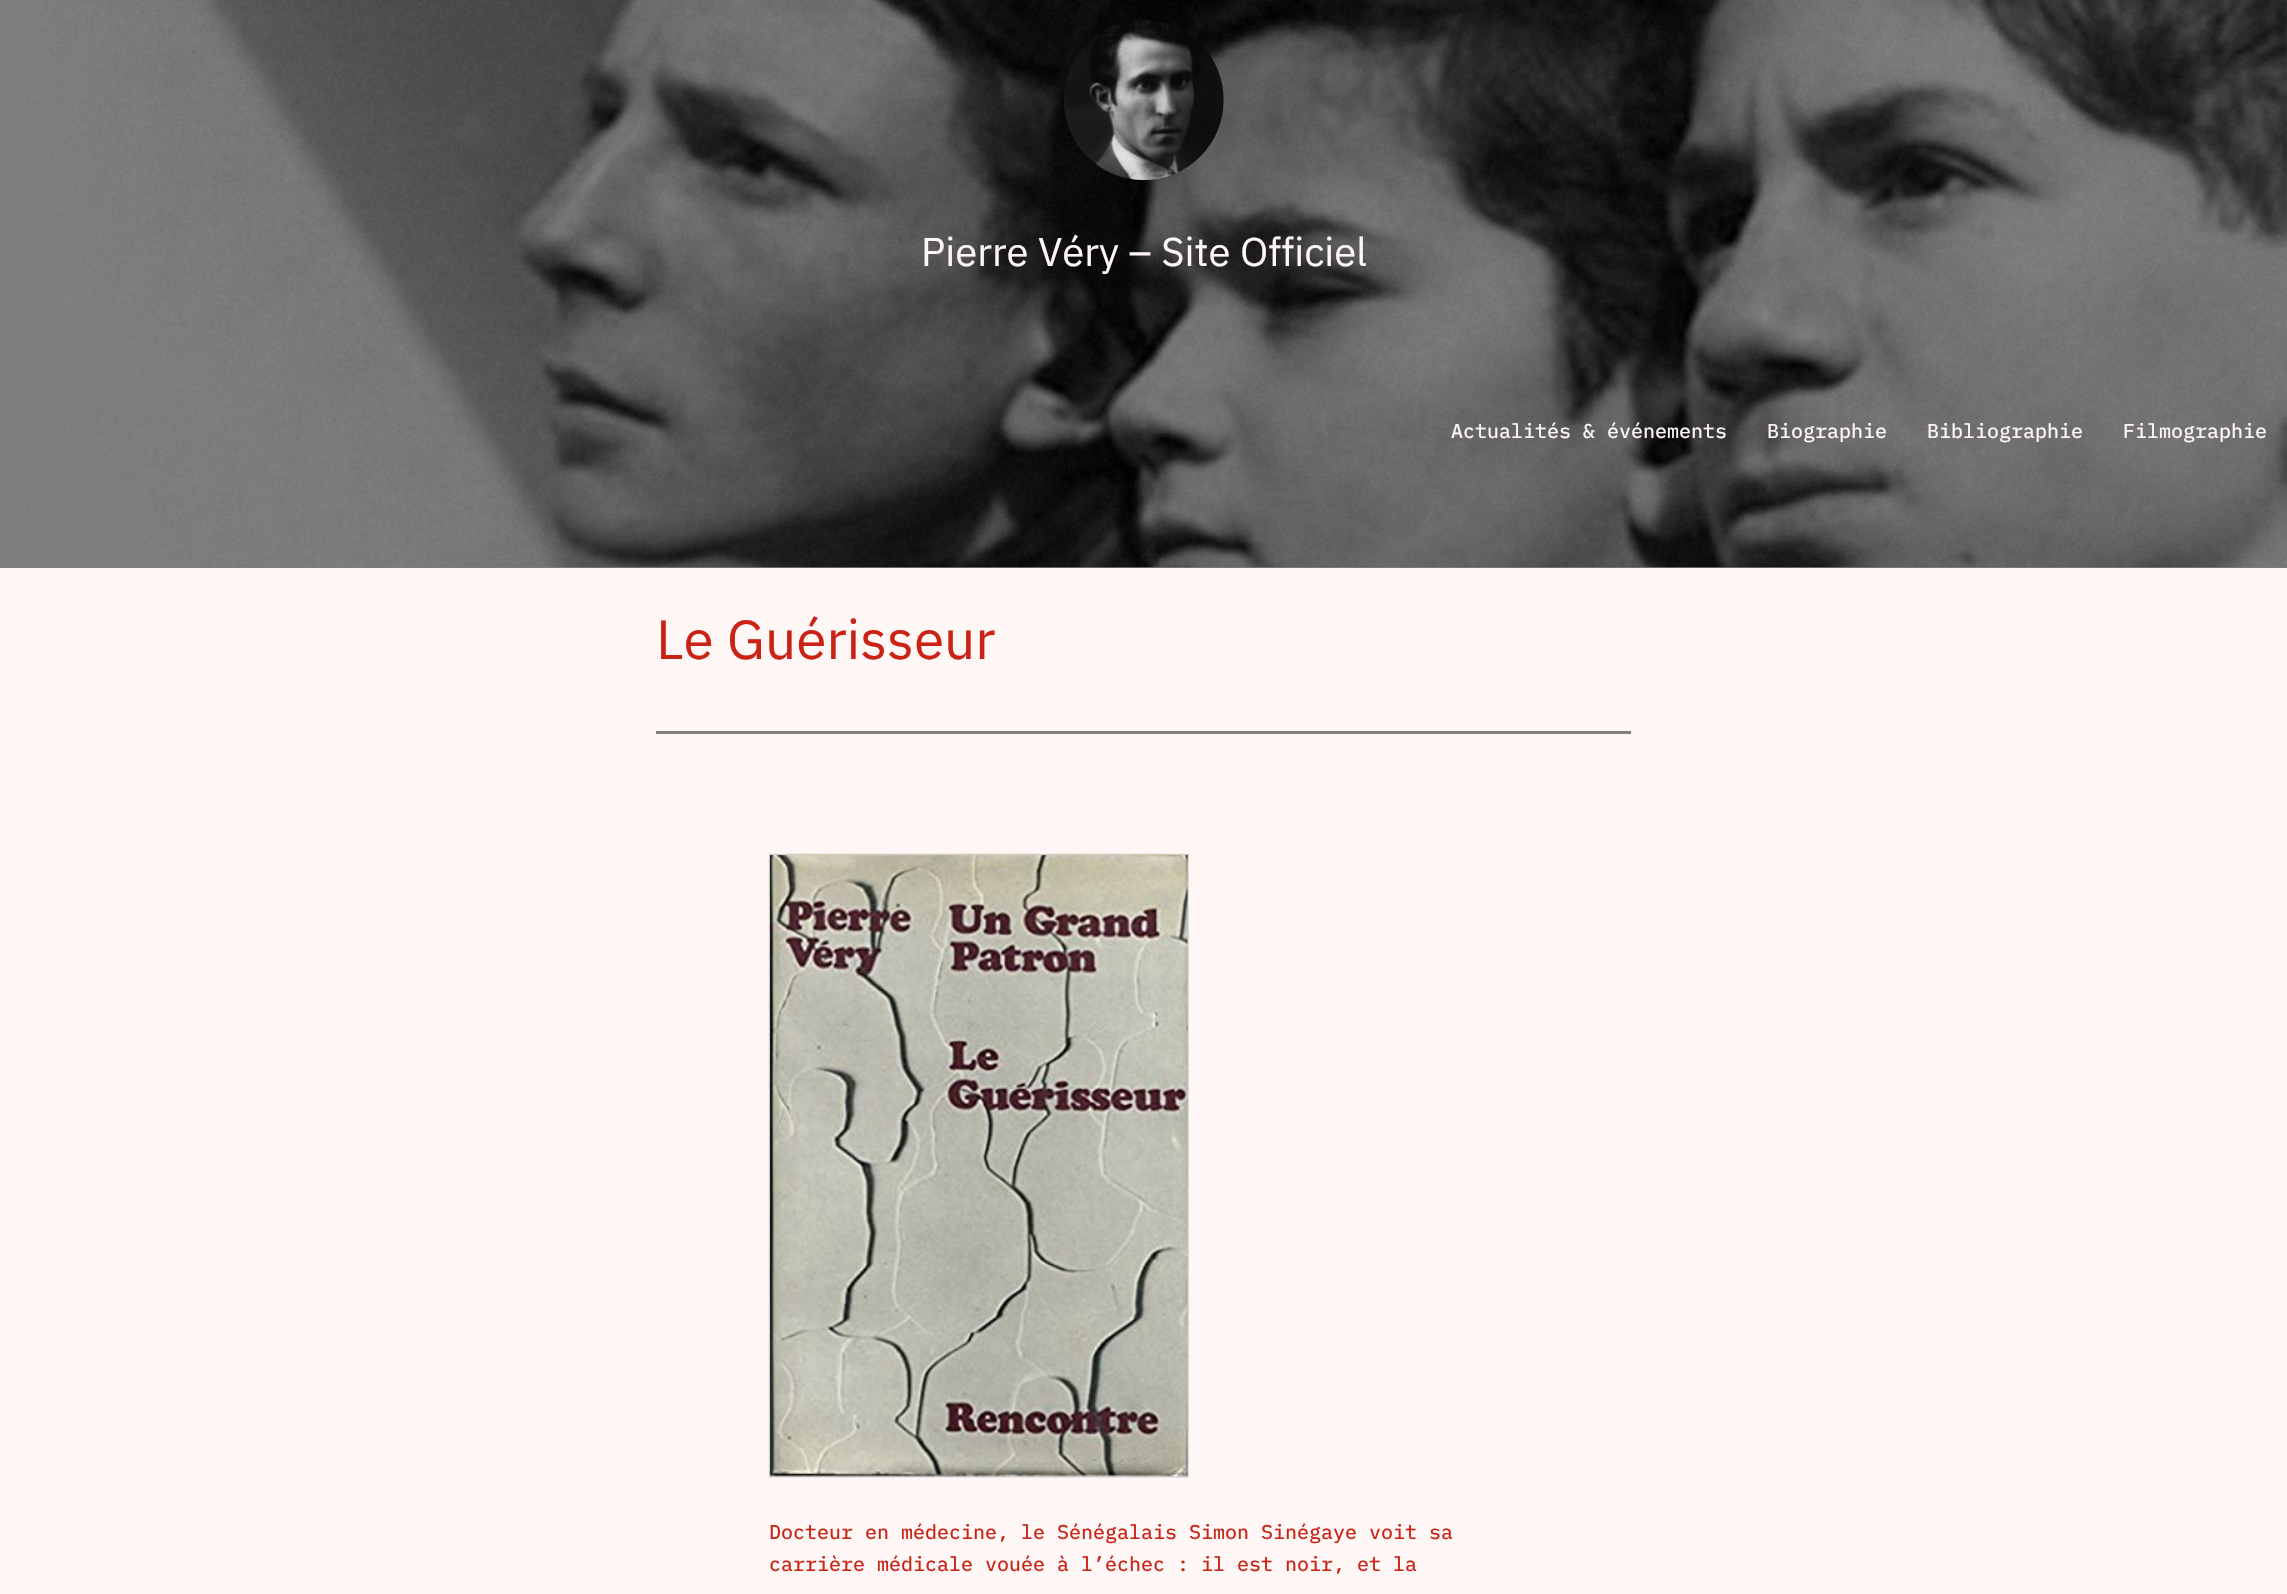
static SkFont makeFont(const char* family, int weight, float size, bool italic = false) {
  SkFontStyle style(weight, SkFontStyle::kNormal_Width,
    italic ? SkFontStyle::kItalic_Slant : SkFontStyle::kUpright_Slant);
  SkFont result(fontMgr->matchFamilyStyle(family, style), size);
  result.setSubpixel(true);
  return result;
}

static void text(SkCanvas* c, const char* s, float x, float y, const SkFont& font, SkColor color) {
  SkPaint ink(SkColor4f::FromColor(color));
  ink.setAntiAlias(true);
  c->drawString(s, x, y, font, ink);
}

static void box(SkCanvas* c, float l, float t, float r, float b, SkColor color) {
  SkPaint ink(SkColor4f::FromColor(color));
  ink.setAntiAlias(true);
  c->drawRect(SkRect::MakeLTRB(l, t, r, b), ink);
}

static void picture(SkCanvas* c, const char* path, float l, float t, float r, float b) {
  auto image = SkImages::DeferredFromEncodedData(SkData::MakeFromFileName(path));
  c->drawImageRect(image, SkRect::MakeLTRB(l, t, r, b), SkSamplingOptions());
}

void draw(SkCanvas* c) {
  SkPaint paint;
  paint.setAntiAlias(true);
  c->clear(0xfffff6f6);
  box(c, 0, 567, 2287, 568, 0xff807b7b);
  picture(c, "img_01.png", 0, 0, 2287, 568);
  picture(c, "img_02.png", 1064, 20, 1224, 180);
  SkFont face1 = makeFont("IBM Plex Sans", 400, 40);
  text(c, "Pierre Véry – Site Officiel", 921, 266, face1, 0xfffff6f6);
  SkFont face2 = makeFont("IBM Plex Mono", 400, 20);
  text(c, "Actualités & événements", 1451, 438, face2, 0xfffff6f6);
  text(c, "Biographie", 1767, 438, face2, 0xfffff6f6);
  text(c, "Bibliographie", 1927, 438, face2, 0xfffff6f6);
  text(c, "Filmographie", 2123, 438, face2, 0xfffff6f6);
  SkFont face3 = makeFont("IBM Plex Sans", 400, 55);
  text(c, "Le Guérisseur", 656, 659, face3, 0xffca2315);
  box(c, 656, 731, 1631, 734, 0xff808080);
  picture(c, "img_03.png", 768, 853, 1189, 1478);
  text(c, "Docteur en médecine, le Sénégalais Simon Sinégaye voit sa", 769, 1539, face2, 0xffca2315);
  text(c, "carrière médicale vouée à l’échec : il est noir, et la", 769, 1571, face2, 0xffca2315);
}
